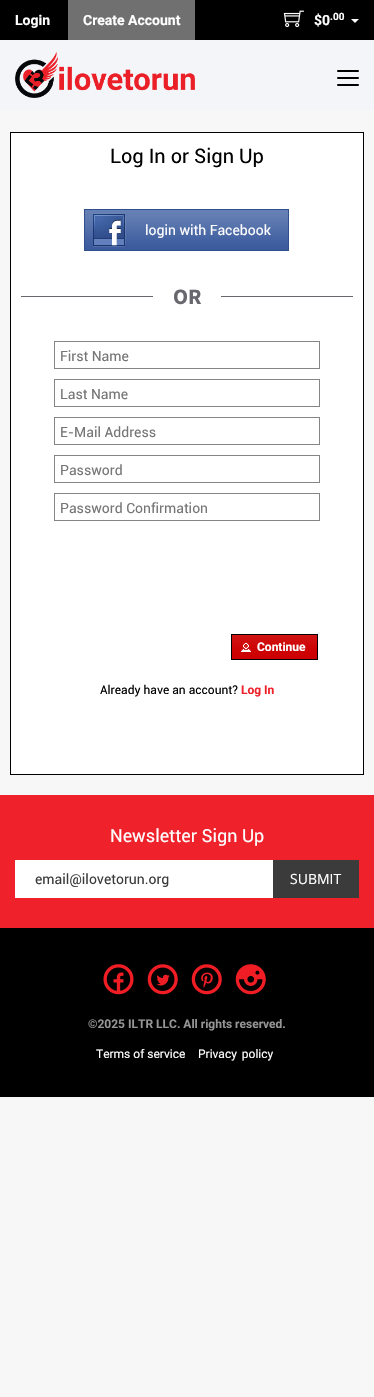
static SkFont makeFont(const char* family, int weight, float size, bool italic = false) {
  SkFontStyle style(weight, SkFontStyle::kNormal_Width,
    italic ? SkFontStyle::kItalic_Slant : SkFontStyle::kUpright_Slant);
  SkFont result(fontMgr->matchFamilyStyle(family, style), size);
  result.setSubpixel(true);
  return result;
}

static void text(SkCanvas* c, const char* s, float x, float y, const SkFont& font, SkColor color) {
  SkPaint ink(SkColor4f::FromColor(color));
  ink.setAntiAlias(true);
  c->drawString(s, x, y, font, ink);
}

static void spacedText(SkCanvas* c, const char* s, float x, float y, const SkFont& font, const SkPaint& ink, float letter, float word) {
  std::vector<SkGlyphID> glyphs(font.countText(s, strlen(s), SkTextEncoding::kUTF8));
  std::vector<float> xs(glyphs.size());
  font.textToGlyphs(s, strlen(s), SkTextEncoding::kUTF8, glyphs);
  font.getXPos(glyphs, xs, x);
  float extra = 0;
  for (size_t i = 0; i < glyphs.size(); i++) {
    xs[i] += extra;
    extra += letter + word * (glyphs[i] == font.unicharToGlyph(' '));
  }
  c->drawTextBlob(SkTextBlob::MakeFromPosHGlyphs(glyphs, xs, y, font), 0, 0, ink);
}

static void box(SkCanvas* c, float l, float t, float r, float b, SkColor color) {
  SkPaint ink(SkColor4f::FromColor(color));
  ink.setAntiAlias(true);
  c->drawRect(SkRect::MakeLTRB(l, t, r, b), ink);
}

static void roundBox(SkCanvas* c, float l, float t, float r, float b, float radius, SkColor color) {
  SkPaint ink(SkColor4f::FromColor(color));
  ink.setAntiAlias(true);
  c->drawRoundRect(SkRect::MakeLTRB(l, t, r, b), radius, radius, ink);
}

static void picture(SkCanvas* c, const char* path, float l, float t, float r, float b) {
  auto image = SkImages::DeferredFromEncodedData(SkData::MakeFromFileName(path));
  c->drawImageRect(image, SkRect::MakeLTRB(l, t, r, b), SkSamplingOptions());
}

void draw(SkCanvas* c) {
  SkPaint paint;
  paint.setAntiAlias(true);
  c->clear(0xfff7f7f7);
  box(c, 0, 0, 374, 40, 0xff000000);
  SkFont face1 = makeFont("Roboto", 700, 14);
  text(c, "Login", 15, 25, face1, 0xffffffff);
  box(c, 68, 0, 195, 40, 0xff707070);
  text(c, "Create Account", 83, 25, face1, 0xffffffff);
  picture(c, "img_01.png", 283, 10, 304, 28);
  text(c, "$0", 314, 25, face1, 0xffffffff);
  SkFont face2 = makeFont("Roboto", 700, 10);
  text(c, ".00", 330, 20, face2, 0xffffffff);
  paint.setColor(0xffffffff);
  c->drawPath(SkPathBuilder().moveTo(351, 19).lineTo(359, 19).lineTo(355, 23).close().detach(), paint);
  box(c, 0, 40, 374, 110, 0xfff4f5f9);
  picture(c, "img_02.png", 15, 52, 195, 98);
  roundBox(c, 337, 70, 359, 72, 1, 0xff000000);
  roundBox(c, 337, 77, 359, 79, 1, 0xff000000);
  roundBox(c, 337, 84, 359, 86, 1, 0xff000000);
  c->drawRect(SkRect::MakeLTRB(10.5f, 132.5f, 363.5f, 774.5f), paint);
  paint.setStyle(SkPaint::kStroke_Style);
  paint.setStrokeWidth(1);
  paint.setColor(0xff000000);
  c->drawRect(SkRect::MakeLTRB(10.5f, 132.5f, 363.5f, 774.5f), paint);
  SkFont face3 = makeFont("Roboto", 400, 20);
  text(c, "Log In or Sign Up", 110, 163, face3, 0xff000000);
  picture(c, "img_03.png", 84, 209, 289, 251);
  SkFont face4 = makeFont("Roboto", 400, 14);
  text(c, "login with Facebook", 145, 235, face4, 0xffffffff);
  box(c, 21, 296, 153, 297, 0xff67676d);
  SkFont face5 = makeFont("Source Sans Pro", 700, 22);
  text(c, "OR", 173, 304, face5, 0xff67676d);
  box(c, 221, 296, 353, 297, 0xff67676d);
  paint.setColor(0xff858585);
  c->drawRect(SkRect::MakeLTRB(54.5f, 341.5f, 319.5f, 368.5f), paint);
  text(c, "First Name", 60, 361, face4, 0xff757575);
  c->drawRect(SkRect::MakeLTRB(54.5f, 379.5f, 319.5f, 406.5f), paint);
  text(c, "Last Name", 60, 399, face4, 0xff757575);
  c->drawRect(SkRect::MakeLTRB(54.5f, 417.5f, 319.5f, 444.5f), paint);
  text(c, "E-Mail Address", 60, 437, face4, 0xff757575);
  c->drawRect(SkRect::MakeLTRB(54.5f, 455.5f, 319.5f, 482.5f), paint);
  text(c, "Password", 60, 475, face4, 0xff757575);
  c->drawRect(SkRect::MakeLTRB(54.5f, 493.5f, 319.5f, 520.5f), paint);
  text(c, "Password Confirmation", 60, 513, face4, 0xff757575);
  picture(c, "img_04.png", 232, 635, 317, 659);
  paint.setColor(0xff000000);
  c->drawRect(SkRect::MakeLTRB(231.5f, 634.5f, 317.5f, 659.5f), paint);
  picture(c, "img_05.png", 241, 642, 251, 652);
  SkFont face6 = makeFont("Roboto", 700, 12);
  text(c, "Continue", 257, 651, face6, 0xffffffff);
  SkFont face7 = makeFont("Roboto", 400, 12);
  text(c, "Already have an account?", 100, 694, face7, 0xff000000);
  text(c, "Log In", 241, 694, face6, 0xffef212b);
  box(c, 0, 795, 374, 928, 0xffef212b);
  SkFont face8 = makeFont("Roboto", 400, 18);
  text(c, "Newsletter Sign Up", 110, 842, face8, 0xffffffff);
  box(c, 15, 860, 273, 898, 0xffffffff);
  text(c, "email@ilovetorun.org", 35, 884, face4, 0xff3b3b3b);
  box(c, 273, 860, 359, 898, 0xff3b3b3b);
  SkFont face9 = makeFont("Open Sans", 400, 14);
  text(c, "SUBMIT", 290, 884, face9, 0xffffffff);
  box(c, 0, 928, 374, 1097, 0xff000000);
  picture(c, "img_06.png", 103, 964, 134, 995);
  picture(c, "img_07.png", 147, 964, 178, 995);
  picture(c, "img_08.png", 191, 964, 222, 995);
  picture(c, "img_09.png", 235, 964, 266, 995);
  text(c, "©2025 ILTR LLC. All rights reserved.", 88, 1028, face6, 0xff959595);
  SkFont face10 = makeFont("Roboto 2", 400, 12);
  text(c, "Terms of service", 96, 1058, face10, 0xffffffff);
  paint.setStyle(SkPaint::kFill_Style);
  paint.setColor(0xffffffff);
  spacedText(c, "Privacy policy", 198, 1058, face10, paint, 0, 2);
}
